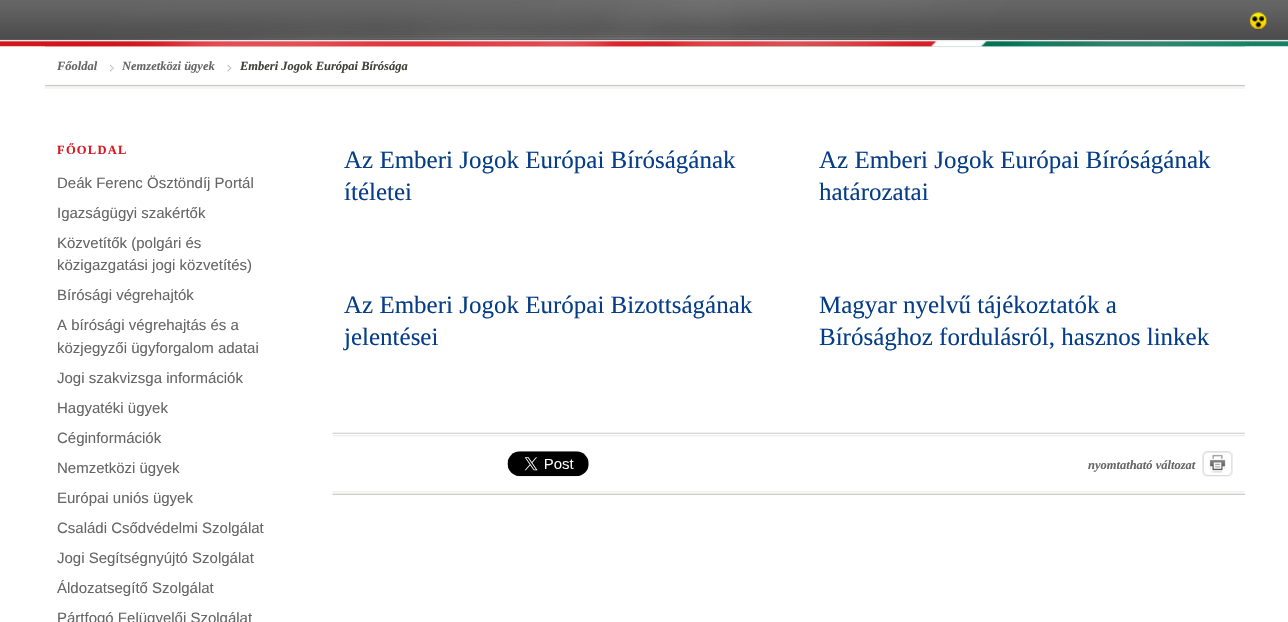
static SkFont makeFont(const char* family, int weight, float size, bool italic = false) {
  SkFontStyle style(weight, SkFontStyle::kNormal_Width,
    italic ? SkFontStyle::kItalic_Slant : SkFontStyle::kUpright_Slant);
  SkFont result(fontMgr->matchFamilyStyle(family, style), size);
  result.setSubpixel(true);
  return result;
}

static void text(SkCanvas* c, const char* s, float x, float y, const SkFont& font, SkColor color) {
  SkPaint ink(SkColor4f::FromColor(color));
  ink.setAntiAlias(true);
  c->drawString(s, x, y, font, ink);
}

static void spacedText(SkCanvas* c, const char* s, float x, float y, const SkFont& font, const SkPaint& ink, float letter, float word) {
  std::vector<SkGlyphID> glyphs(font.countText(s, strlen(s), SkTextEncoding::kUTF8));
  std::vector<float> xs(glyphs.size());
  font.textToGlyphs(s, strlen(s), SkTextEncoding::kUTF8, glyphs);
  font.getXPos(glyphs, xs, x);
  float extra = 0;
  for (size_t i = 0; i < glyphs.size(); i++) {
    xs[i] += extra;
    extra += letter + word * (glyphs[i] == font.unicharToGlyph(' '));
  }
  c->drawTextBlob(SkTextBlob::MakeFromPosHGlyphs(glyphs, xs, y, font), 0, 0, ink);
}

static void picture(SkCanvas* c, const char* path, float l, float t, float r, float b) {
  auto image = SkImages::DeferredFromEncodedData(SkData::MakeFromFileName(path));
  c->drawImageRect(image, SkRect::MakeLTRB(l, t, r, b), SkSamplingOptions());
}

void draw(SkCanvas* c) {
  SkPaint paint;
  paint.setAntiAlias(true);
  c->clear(0xffffffff);
  picture(c, "img_01.png", 0, 0, 645, 47);
  picture(c, "img_04.png", 645, 0, 1288, 47);
  picture(c, "img_02.png", 45, 0, 1245, 47);
  picture(c, "img_03.png", 1249, 12, 1267, 30);
  picture(c, "img_05.png", 45, 84, 1245, 89);
  SkFont face1 = makeFont("Liberation Serif", 700, 12.5f, true);
  text(c, "Főoldal", 57, 70, face1, 0xff666666);
  picture(c, "img_06.png", 110, 65, 114, 72);
  text(c, "Nemzetközi ügyek", 122, 70, face1, 0xff666666);
  picture(c, "img_07.png", 227, 65, 232, 72);
  text(c, "Emberi Jogok Európai Bírósága", 240, 70, face1, 0xff40403d);
  SkFont face2 = makeFont("Liberation Serif", 700, 12.5f);
  paint.setColor(0xffd71921);
  spacedText(c, "FŐOLDAL", 57, 154, face2, paint, 1.25f, 0);
  SkFont face3 = makeFont("Liberation Sans", 400, 15);
  text(c, "Deák Ferenc Ösztöndíj Portál", 57, 188, face3, 0xff666666);
  text(c, "Igazságügyi szakértők", 57, 218, face3, 0xff666666);
  text(c, "Közvetítők (polgári és", 57, 248, face3, 0xff666666);
  text(c, "közigazgatási jogi közvetítés)", 57, 270, face3, 0xff666666);
  text(c, "Bírósági végrehajtók", 57, 300, face3, 0xff666666);
  text(c, "A bírósági végrehajtás és a", 57, 330, face3, 0xff666666);
  text(c, "közjegyzői ügyforgalom adatai", 57, 353, face3, 0xff666666);
  text(c, "Jogi szakvizsga információk", 57, 383, face3, 0xff666666);
  text(c, "Hagyatéki ügyek", 57, 413, face3, 0xff666666);
  text(c, "Céginformációk", 57, 443, face3, 0xff666666);
  text(c, "Nemzetközi ügyek", 57, 473, face3, 0xff666666);
  text(c, "Európai uniós ügyek", 57, 503, face3, 0xff666666);
  text(c, "Családi Csődvédelmi Szolgálat", 57, 533, face3, 0xff666666);
  text(c, "Jogi Segítségnyújtó Szolgálat", 57, 563, face3, 0xff666666);
  text(c, "Áldozatsegítő Szolgálat", 57, 593, face3, 0xff666666);
  text(c, "Pártfogó Felügyelői Szolgálat", 57, 623, face3, 0xff666666);
  SkFont face4 = makeFont("Liberation Serif", 400, 25);
  text(c, "Az Emberi Jogok Európai Bíróságának", 344, 168, face4, 0xff053d88);
  text(c, "ítéletei", 344, 200, face4, 0xff053d88);
  text(c, "Az Emberi Jogok Európai Bíróságának", 819, 168, face4, 0xff053d88);
  text(c, "határozatai", 819, 200, face4, 0xff053d88);
  text(c, "Az Emberi Jogok Európai Bizottságának", 344, 313, face4, 0xff053d88);
  text(c, "jelentései", 344, 345, face4, 0xff053d88);
  text(c, "Magyar nyelvű tájékoztatók a", 819, 313, face4, 0xff053d88);
  text(c, "Bírósághoz fordulásról, hasznos linkek", 819, 345, face4, 0xff053d88);
  picture(c, "img_08.png", 332, 432, 1245, 437);
  picture(c, "img_09.png", 332, 491, 1245, 495);
  picture(c, "img_10.png", 507, 451, 589, 477);
  text(c, "nyomtatható változat", 1088, 469, face1, 0xff666666);
  picture(c, "img_11.png", 1202, 451, 1233, 477);
}
